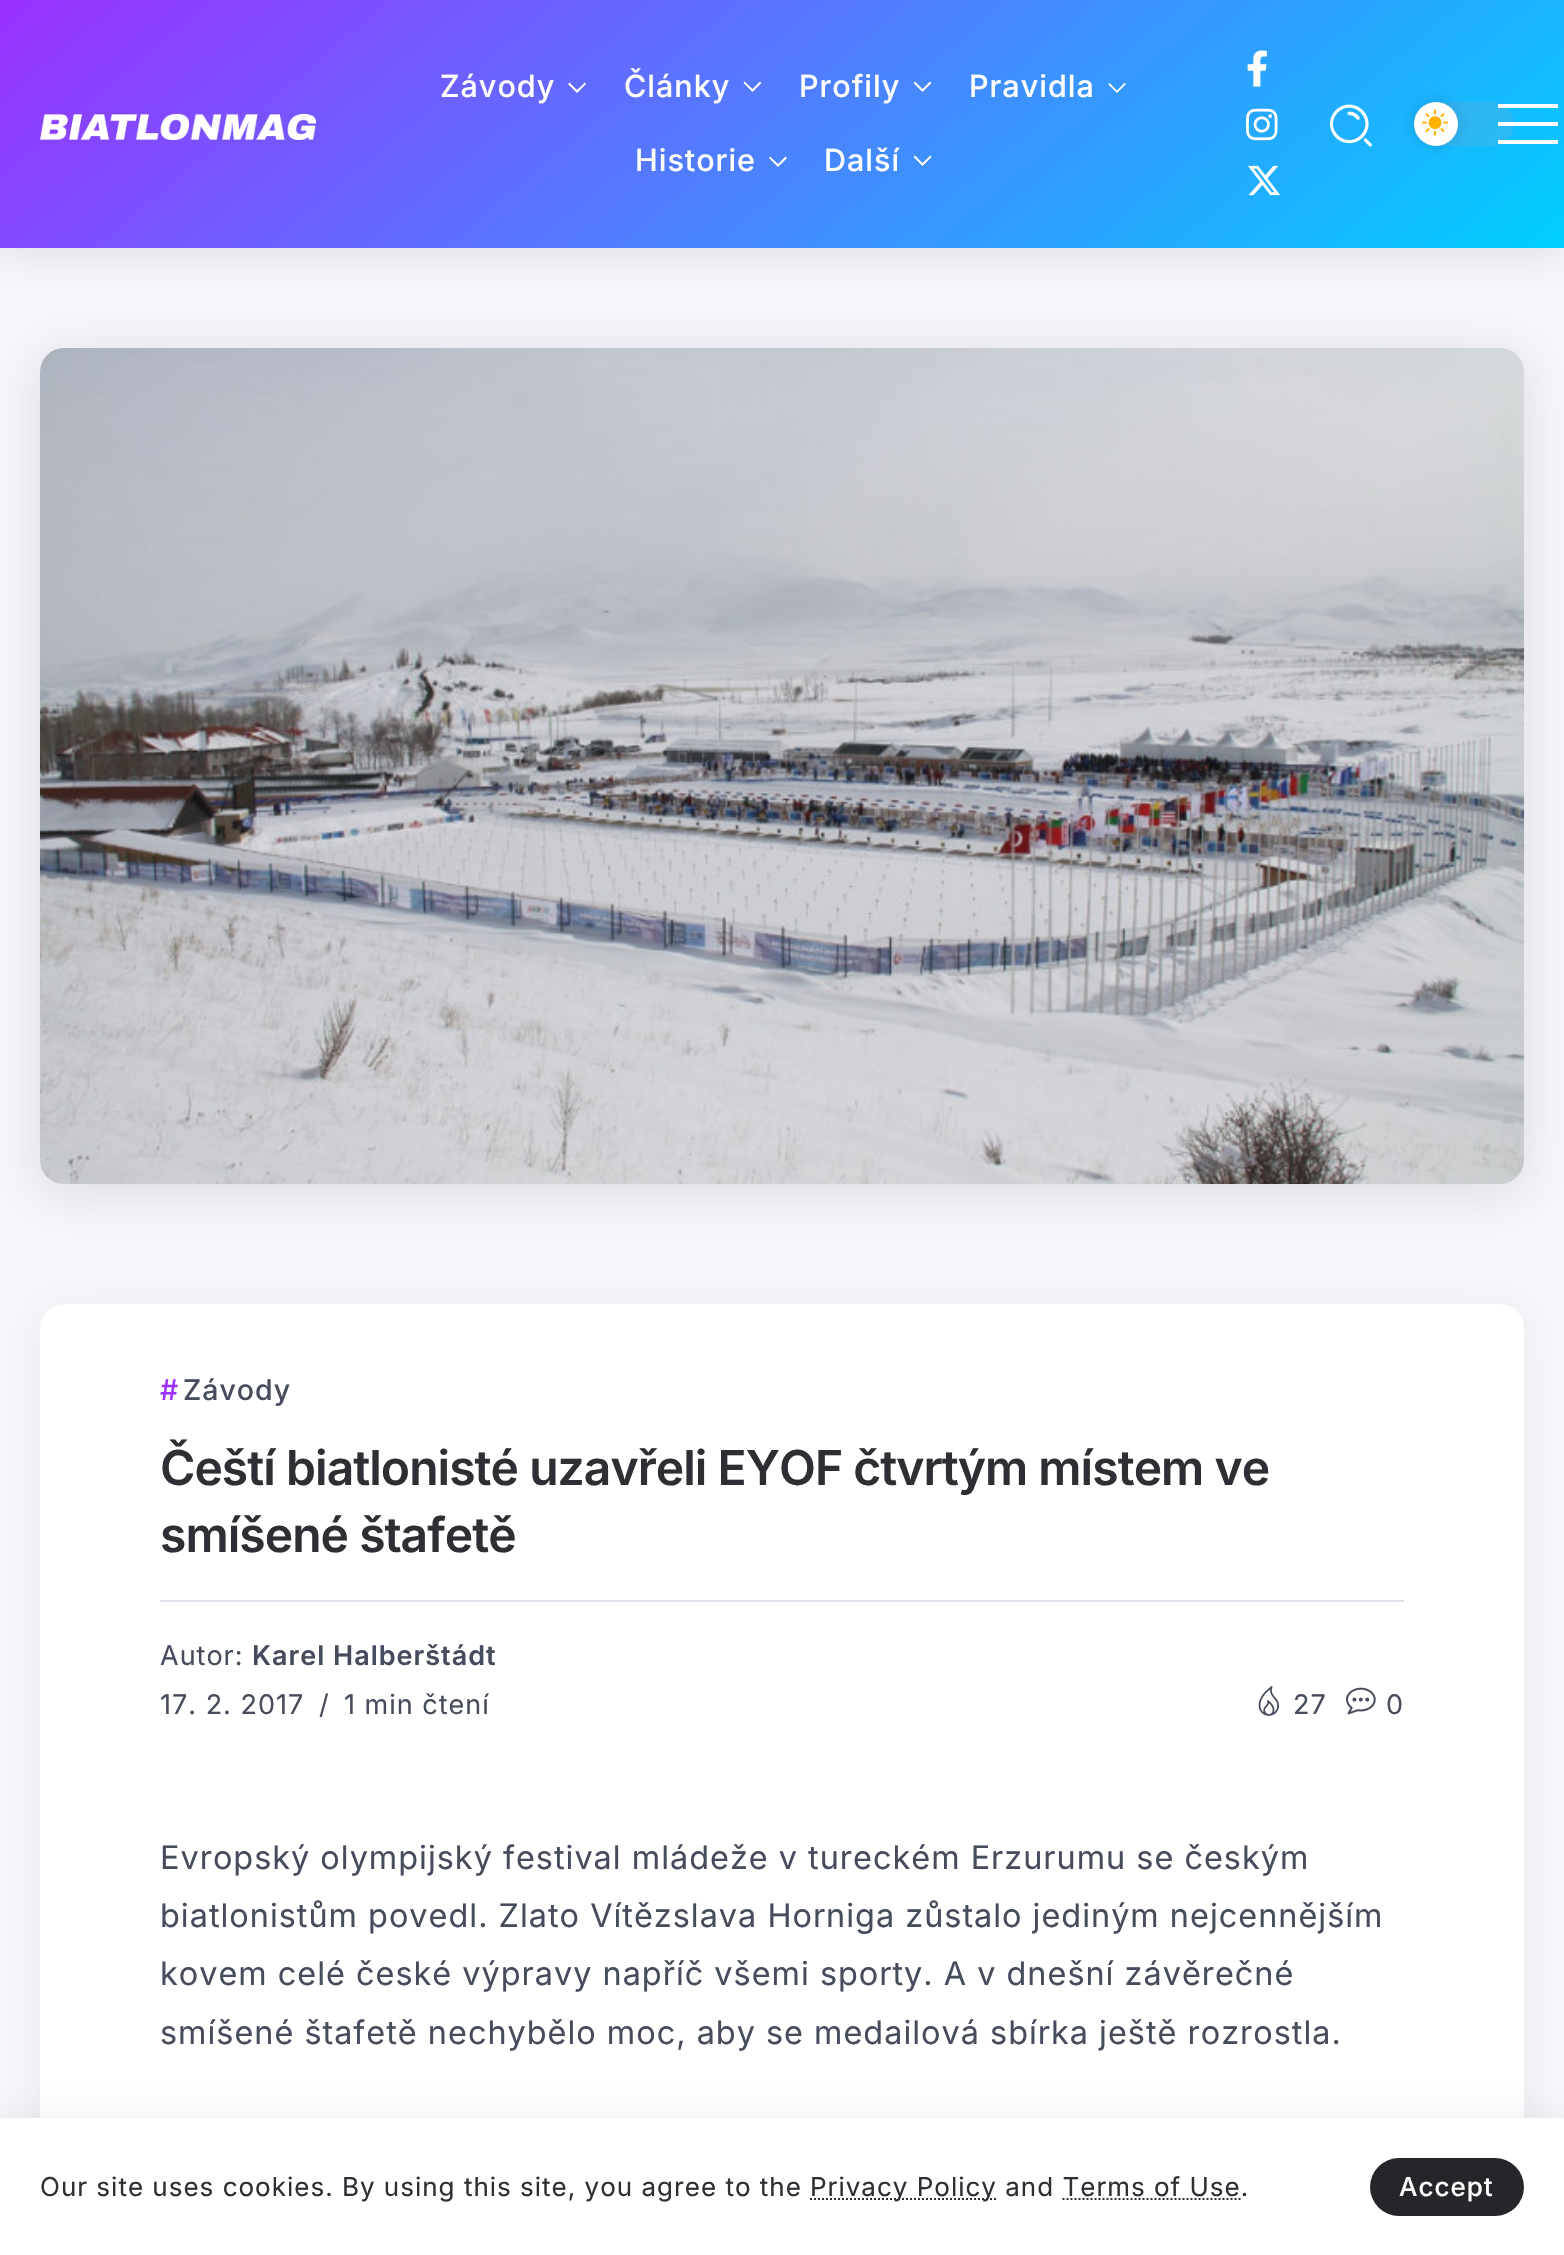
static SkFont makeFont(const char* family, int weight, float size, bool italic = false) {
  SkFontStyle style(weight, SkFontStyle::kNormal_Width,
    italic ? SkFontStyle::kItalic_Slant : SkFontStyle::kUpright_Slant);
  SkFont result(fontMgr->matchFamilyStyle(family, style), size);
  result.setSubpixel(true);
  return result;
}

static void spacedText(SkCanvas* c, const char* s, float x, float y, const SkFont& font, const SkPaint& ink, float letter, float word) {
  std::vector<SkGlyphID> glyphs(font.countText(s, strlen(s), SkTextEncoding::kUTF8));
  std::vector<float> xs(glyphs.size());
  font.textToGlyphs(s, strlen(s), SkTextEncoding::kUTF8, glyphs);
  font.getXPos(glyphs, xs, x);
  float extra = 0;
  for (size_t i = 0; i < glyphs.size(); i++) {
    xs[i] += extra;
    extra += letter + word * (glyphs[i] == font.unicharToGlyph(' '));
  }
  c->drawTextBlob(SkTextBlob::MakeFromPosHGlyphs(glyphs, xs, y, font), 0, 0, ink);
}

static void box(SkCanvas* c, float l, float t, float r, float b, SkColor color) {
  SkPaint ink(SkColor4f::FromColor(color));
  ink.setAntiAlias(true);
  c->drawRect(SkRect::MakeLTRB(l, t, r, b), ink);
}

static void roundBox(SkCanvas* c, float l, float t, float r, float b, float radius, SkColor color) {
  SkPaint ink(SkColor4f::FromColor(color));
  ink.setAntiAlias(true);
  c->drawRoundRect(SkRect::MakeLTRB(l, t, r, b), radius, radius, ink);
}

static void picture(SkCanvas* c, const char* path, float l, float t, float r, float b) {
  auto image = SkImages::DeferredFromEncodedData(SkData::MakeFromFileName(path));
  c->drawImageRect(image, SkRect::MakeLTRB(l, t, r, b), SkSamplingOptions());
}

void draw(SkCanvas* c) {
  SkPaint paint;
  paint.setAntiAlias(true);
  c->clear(0xfff5f5fa);
  paint.setColor(0x1a0e0e13);
  paint.setMaskFilter(SkMaskFilter::MakeBlur(kNormal_SkBlurStyle, 20));
  c->drawRect(SkRect::MakeLTRB(0, 4, 1564, 252), paint);
  paint.setMaskFilter(nullptr);
  {
    const SkColor colors[] = {0xff9b30ff, 0xff00cfff};
    const float stops[] = {0, 1};
    const SkPoint ends[] = {{398, -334}, {1166, 582}};
    paint.setShader(SkGradientShader::MakeLinear(ends, colors, stops, 2, SkTileMode::kClamp));
    paint.setAlpha(255);
  }
  c->drawRect(SkRect::MakeLTRB(0, 0, 1564, 248), paint);
  picture(c, "img_01.png", 40, 114, 316, 140);
  SkFont face1 = makeFont("Inter", 500, 30.5f);
  paint.setShader(nullptr);
  paint.setColor(0xffffffff);
  spacedText(c, "Závody", 440, 97, face1, paint, 1, 0);
  c->drawPath(SkPathBuilder().moveTo(586, 84).lineTo(577, 93).lineTo(568, 84).lineTo(569.5f, 82.5f).lineTo(577, 90).lineTo(585, 82.5f).close().detach(), paint);
  spacedText(c, "Články", 624, 97, face1, paint, 1, 0);
  c->drawPath(SkPathBuilder().moveTo(761.5f, 83).lineTo(752.5f, 92).lineTo(743.5f, 83).lineTo(744.5f, 81.5f).lineTo(752.5f, 89).lineTo(760, 81.5f).close().detach(), paint);
  spacedText(c, "Profily", 799, 97, face1, paint, 1, 0);
  c->drawPath(SkPathBuilder().moveTo(931.5f, 83).lineTo(922.5f, 92).lineTo(913.5f, 83).lineTo(915, 81.5f).lineTo(922.5f, 89).lineTo(930, 81.5f).close().detach(), paint);
  spacedText(c, "Pravidla", 969, 97, face1, paint, 1, 0);
  c->drawPath(SkPathBuilder().moveTo(1126, 84).lineTo(1117, 93).lineTo(1108, 84).lineTo(1109.5f, 83).lineTo(1117, 90.5f).lineTo(1124.5f, 83).close().detach(), paint);
  spacedText(c, "Historie", 635, 171, face1, paint, 1, 0);
  c->drawPath(SkPathBuilder().moveTo(787, 158).lineTo(778, 167).lineTo(769, 158).lineTo(770, 156.5f).lineTo(778, 164).lineTo(785.5f, 156.5f).close().detach(), paint);
  spacedText(c, "Další", 824, 171, face1, paint, 1, 0);
  c->drawPath(SkPathBuilder().moveTo(931.5f, 157).lineTo(922.5f, 166).lineTo(913.5f, 157).lineTo(915, 155.5f).lineTo(922.5f, 163).lineTo(930.5f, 155.5f).close().detach(), paint);
  picture(c, "img_02.png", 1247, 50, 1267, 87);
  picture(c, "img_03.png", 1246, 108, 1278, 141);
  picture(c, "img_04.png", 1248, 165, 1281, 196);
  picture(c, "img_05.png", 1330, 104, 1372, 147);
  roundBox(c, 1414, 102, 1514, 146, 22, 0x2e9fa8b5);
  paint.setColor(0x302f3139);
  paint.setMaskFilter(SkMaskFilter::MakeBlur(kNormal_SkBlurStyle, 8));
  c->drawRoundRect(SkRect::MakeLTRB(1414, 102, 1458, 146), 22, 22, paint);
  paint.setMaskFilter(nullptr);
  paint.setColor(0xffffffff);
  c->drawCircle(1436, 124, 22, paint);
  picture(c, "img_06.png", 1422, 109, 1448, 136);
  box(c, 1498, 104, 1558, 108, 0xffffffff);
  box(c, 1498, 122, 1558, 126, 0xffffffff);
  box(c, 1498, 140, 1558, 144, 0xffffffff);
  paint.setColor(0x1f25252e);
  paint.setMaskFilter(SkMaskFilter::MakeBlur(kNormal_SkBlurStyle, 25));
  c->drawRoundRect(SkRect::MakeLTRB(40, 356, 1524, 1192), 24, 24, paint);
  paint.setMaskFilter(nullptr);
  picture(c, "img_07.png", 40, 348, 1524, 1184);
  paint.setColor(0x0d0e0e13);
  paint.setMaskFilter(SkMaskFilter::MakeBlur(kNormal_SkBlurStyle, 20));
  c->drawRoundRect(SkRect::MakeLTRB(40, 1308, 1524, 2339), 24, 24, paint);
  paint.setMaskFilter(nullptr);
  roundBox(c, 40, 1304, 1524, 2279, 24, 0xffffffff);
  SkFont face2 = makeFont("Inter", 500, 28.5f);
  paint.setColor(0xff9b30ff);
  spacedText(c, "#", 160, 1400, face2, paint, 1, 0);
  paint.setColor(0xff474c5d);
  spacedText(c, "Závody", 183, 1400, face2, paint, 1, 0);
  box(c, 160, 1600, 1404, 1602, 0xffdfe1ea);
  SkFont face3 = makeFont("Inter", 600, 48);
  paint.setColor(0xff2f2e35);
  spacedText(c, "Čeští biatlonisté uzavřeli EYOF čtvrtým místem ve", 160, 1485, face3, paint, -0.95f, 0);
  spacedText(c, "smíšené štafetě", 160, 1552, face3, paint, -0.95f, 0);
  SkFont face4 = makeFont("Inter", 400, 27);
  paint.setColor(0xff474c5d);
  spacedText(c, "Autor:", 160, 1665, face4, paint, 1, 0);
  SkFont face5 = makeFont("Inter", 600, 27);
  spacedText(c, "Karel Halberštádt", 252, 1665, face5, paint, 1, 0);
  spacedText(c, "17. 2. 2017", 160, 1714, face4, paint, 1, 0);
  spacedText(c, "/", 319, 1714, face4, paint, 1, 0);
  spacedText(c, "1 min čtení", 344, 1714, face4, paint, 1, 0);
  picture(c, "img_08.png", 1258, 1686, 1279, 1716);
  spacedText(c, "27", 1293, 1714, face4, paint, 1, 0);
  picture(c, "img_09.png", 1346, 1687, 1376, 1715);
  spacedText(c, "0", 1386, 1714, face4, paint, 1, 0);
  SkFont face6 = makeFont("Inter", 400, 32.4f);
  spacedText(c, "Evropský olympijský festival mládeže v tureckém Erzurumu se českým", 160, 1869, face6, paint, 1, 0);
  spacedText(c, "biatlonistům povedl. Zlato Vítězslava Horniga zůstalo jediným nejcennějším", 160, 1927, face6, paint, 1, 0);
  spacedText(c, "kovem celé české výpravy napříč všemi sporty. A v dnešní závěrečné", 160, 1985, face6, paint, 1, 0);
  spacedText(c, "smíšené štafetě nechybělo moc, aby se medailová sbírka ještě rozrostla.", 160, 2044, face6, paint, 1, 0);
  paint.setColor(0x1f25252e);
  paint.setMaskFilter(SkMaskFilter::MakeBlur(kNormal_SkBlurStyle, 25));
  c->drawRect(SkRect::MakeLTRB(0, 2126, 1564, 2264), paint);
  paint.setMaskFilter(nullptr);
  box(c, 0, 2118, 1564, 2255, 0xffffffff);
  SkFont face7 = makeFont("Inter", 400, 26);
  paint.setColor(0xff2f2e35);
  spacedText(c, "Our site uses cookies. By using this site, you agree to the", 40, 2196, face7, paint, 1, 0);
  paint.setStyle(SkPaint::kStroke_Style);
  paint.setStrokeWidth(2);
  paint.setPathEffect(SkDashPathEffect::Make({{2, 2}}, 0));
  c->drawPath(SkPathBuilder().moveTo(810, 2199).lineTo(997, 2199).detach(), paint);
  paint.setPathEffect(nullptr);
  paint.setStyle(SkPaint::kFill_Style);
  spacedText(c, "Privacy Policy and Terms of Use.", 810, 2196, face7, paint, 1, 0);
  paint.setStyle(SkPaint::kStroke_Style);
  paint.setPathEffect(SkDashPathEffect::Make({{2, 2}}, 0));
  c->drawPath(SkPathBuilder().moveTo(1062.5f, 2199).lineTo(1241, 2199).detach(), paint);
  paint.setPathEffect(nullptr);
  roundBox(c, 1370, 2158, 1524, 2216, 29, 0xff25252a);
  SkFont face8 = makeFont("Inter", 500, 26);
  paint.setStyle(SkPaint::kFill_Style);
  paint.setColor(0xffffffff);
  spacedText(c, "Accept", 1399, 2196, face8, paint, 1, 0);
}
